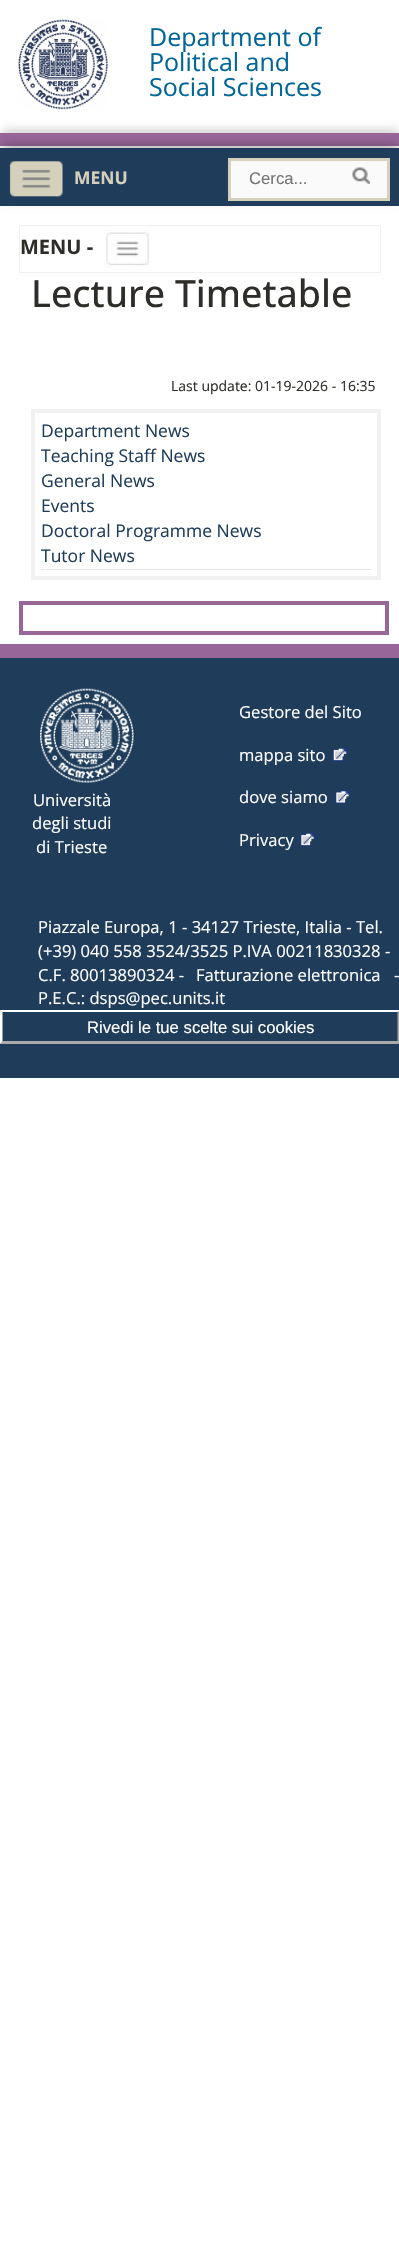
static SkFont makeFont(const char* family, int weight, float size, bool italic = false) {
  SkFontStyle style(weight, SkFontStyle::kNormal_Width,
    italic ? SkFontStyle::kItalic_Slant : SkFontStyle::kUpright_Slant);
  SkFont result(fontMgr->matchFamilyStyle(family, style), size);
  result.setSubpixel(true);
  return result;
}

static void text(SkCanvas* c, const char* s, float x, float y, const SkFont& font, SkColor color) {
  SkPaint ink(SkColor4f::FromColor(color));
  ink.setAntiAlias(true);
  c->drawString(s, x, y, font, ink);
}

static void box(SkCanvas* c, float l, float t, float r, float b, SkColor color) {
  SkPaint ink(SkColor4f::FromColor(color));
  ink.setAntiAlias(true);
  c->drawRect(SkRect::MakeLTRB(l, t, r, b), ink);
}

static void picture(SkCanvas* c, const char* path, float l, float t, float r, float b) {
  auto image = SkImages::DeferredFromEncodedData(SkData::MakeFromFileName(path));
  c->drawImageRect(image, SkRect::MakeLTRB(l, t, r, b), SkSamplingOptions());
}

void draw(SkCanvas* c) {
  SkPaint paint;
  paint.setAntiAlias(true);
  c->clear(0xffffffff);
  picture(c, "img_01.png", 18, 19, 108, 110);
  SkFont face1 = makeFont("Open Sans", 400, 25);
  text(c, "Department of", 149, 46, face1, 0xff006699);
  text(c, "Political and", 149, 71, face1, 0xff006699);
  text(c, "Social Sciences", 149, 96, face1, 0xff006699);
  paint.setColor(0x33000000);
  paint.setMaskFilter(SkMaskFilter::MakeBlur(kNormal_SkBlurStyle, 5));
  c->drawRect(SkRect::MakeLTRB(3, 130, 398, 139), paint);
  paint.setMaskFilter(nullptr);
  box(c, 0, 133, 399, 146, 0xff996699);
  paint.setColor(0x4d000000);
  paint.setMaskFilter(SkMaskFilter::MakeBlur(kNormal_SkBlurStyle, 5));
  c->drawRect(SkRect::MakeLTRB(3, 145, 398, 199), paint);
  paint.setMaskFilter(nullptr);
  box(c, 0, 148, 399, 206, 0xff1f3d5a);
  picture(c, "img_02.png", 9, 161, 63, 197);
  SkFont face2 = makeFont("Open Sans", 700, 17.5f);
  text(c, "MENU", 74, 184, face2, 0xffd4d0bc);
  paint.setColor(0xfffafafa);
  c->drawRect(SkRect::MakeLTRB(229.5f, 159.5f, 388.5f, 199.5f), paint);
  paint.setStyle(SkPaint::kStroke_Style);
  paint.setStrokeWidth(3);
  paint.setColor(0xffd4d0bc);
  c->drawRect(SkRect::MakeLTRB(229.5f, 159.5f, 388.5f, 199.5f), paint);
  SkFont face3 = makeFont("Liberation Sans", 400, 16.7f);
  text(c, "Cerca...", 249, 184, face3, 0xff757575);
  picture(c, "img_03.png", 352, 167, 370, 184);
  paint.setStrokeWidth(1);
  paint.setColor(0xfff1f1f1);
  c->drawRect(SkRect::MakeLTRB(19.5f, 225.5f, 380.5f, 272.5f), paint);
  SkFont face4 = makeFont("Open Sans", 700, 20);
  text(c, "MENU -", 20, 254, face4, 0xff2e2d29);
  picture(c, "img_04.png", 104, 230, 150, 267);
  SkFont face5 = makeFont("Open Sans", 500, 37.5f);
  text(c, "Lecture Timetable", 31, 307, face5, 0xff2e2d29);
  SkFont face6 = makeFont("Open Sans", 400, 14);
  text(c, "Last update: 01-19-2026 - 16:35", 171, 391, face6, 0xff2e2d29);
  paint.setStrokeWidth(4);
  c->drawRect(SkRect::MakeLTRB(33, 411, 379, 578), paint);
  box(c, 41, 569, 371, 570, 0xffe6e6e6);
  SkFont face7 = makeFont("Open Sans", 400, 17.5f);
  text(c, "Department News", 41, 437, face7, 0xff1f3d5a);
  text(c, "Teaching Staff News", 41, 462, face7, 0xff1f3d5a);
  text(c, "General News", 41, 487, face7, 0xff1f3d5a);
  text(c, "Events", 41, 512, face7, 0xff1f3d5a);
  text(c, "Doctoral Programme News", 41, 537, face7, 0xff1f3d5a);
  text(c, "Tutor News", 41, 562, face7, 0xff1f3d5a);
  paint.setColor(0xff996699);
  c->drawRect(SkRect::MakeLTRB(21, 603, 387, 633), paint);
  box(c, 0, 658, 399, 1078, 0xff1f3d5a);
  box(c, 0, 644, 399, 658, 0xff996699);
  picture(c, "img_05.png", 40, 688, 134, 783);
  SkFont face8 = makeFont("Open Sans", 400, 16.6f);
  text(c, "Università", 33, 806, face8, 0xffffffff);
  text(c, "degli studi", 32, 829, face8, 0xffffffff);
  text(c, "di Trieste", 36, 853, face8, 0xffffffff);
  text(c, "Gestore del Sito", 239, 718, face8, 0xffffffff);
  text(c, "mappa sito", 239, 761, face8, 0xffffffff);
  picture(c, "img_06.png", 332, 747, 348, 762);
  text(c, "dove siamo", 239, 803, face8, 0xffffffff);
  picture(c, "img_07.png", 335, 790, 351, 804);
  text(c, "Privacy", 239, 846, face8, 0xffffffff);
  picture(c, "img_08.png", 300, 832, 316, 847);
  text(c, "Piazzale Europa, 1 - 34127 Trieste, Italia - Tel.", 38, 933, face8, 0xffffffff);
  text(c, "(+39) 040 558 3524/3525 P.IVA 00211830328 -", 38, 957, face8, 0xffffffff);
  text(c, "C.F. 80013890324 -", 38, 981, face8, 0xffffffff);
  text(c, "Fatturazione elettronica", 196, 981, face8, 0xffffffff);
  text(c, "-", 394, 981, face8, 0xffffffff);
  text(c, "P.E.C.: dsps@pec.units.it", 38, 1004, face8, 0xffffffff);
  paint.setStyle(SkPaint::kFill_Style);
  paint.setColor(0xffffffff);
  c->drawPath(SkPathBuilder().moveTo(0, 1010).lineTo(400, 1010).lineTo(398, 1012).lineTo(2, 1012).close().detach(), paint);
  paint.setColor(0xffaaaaaa);
  c->drawPath(SkPathBuilder().moveTo(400, 1010).lineTo(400, 1044).lineTo(397.5f, 1041).lineTo(397.5f, 1012.5f).close().detach(), paint);
  c->drawPath(SkPathBuilder().moveTo(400, 1044).lineTo(0, 1044).lineTo(2, 1041).lineTo(398, 1041).close().detach(), paint);
  paint.setColor(0xffffffff);
  c->drawPath(SkPathBuilder().moveTo(0, 1044).lineTo(0, 1010).lineTo(2.5f, 1012.5f).lineTo(2.5f, 1041).close().detach(), paint);
  text(c, "Rivedi le tue scelte sui cookies", 87, 1033, face3, 0xffffffff);
}
